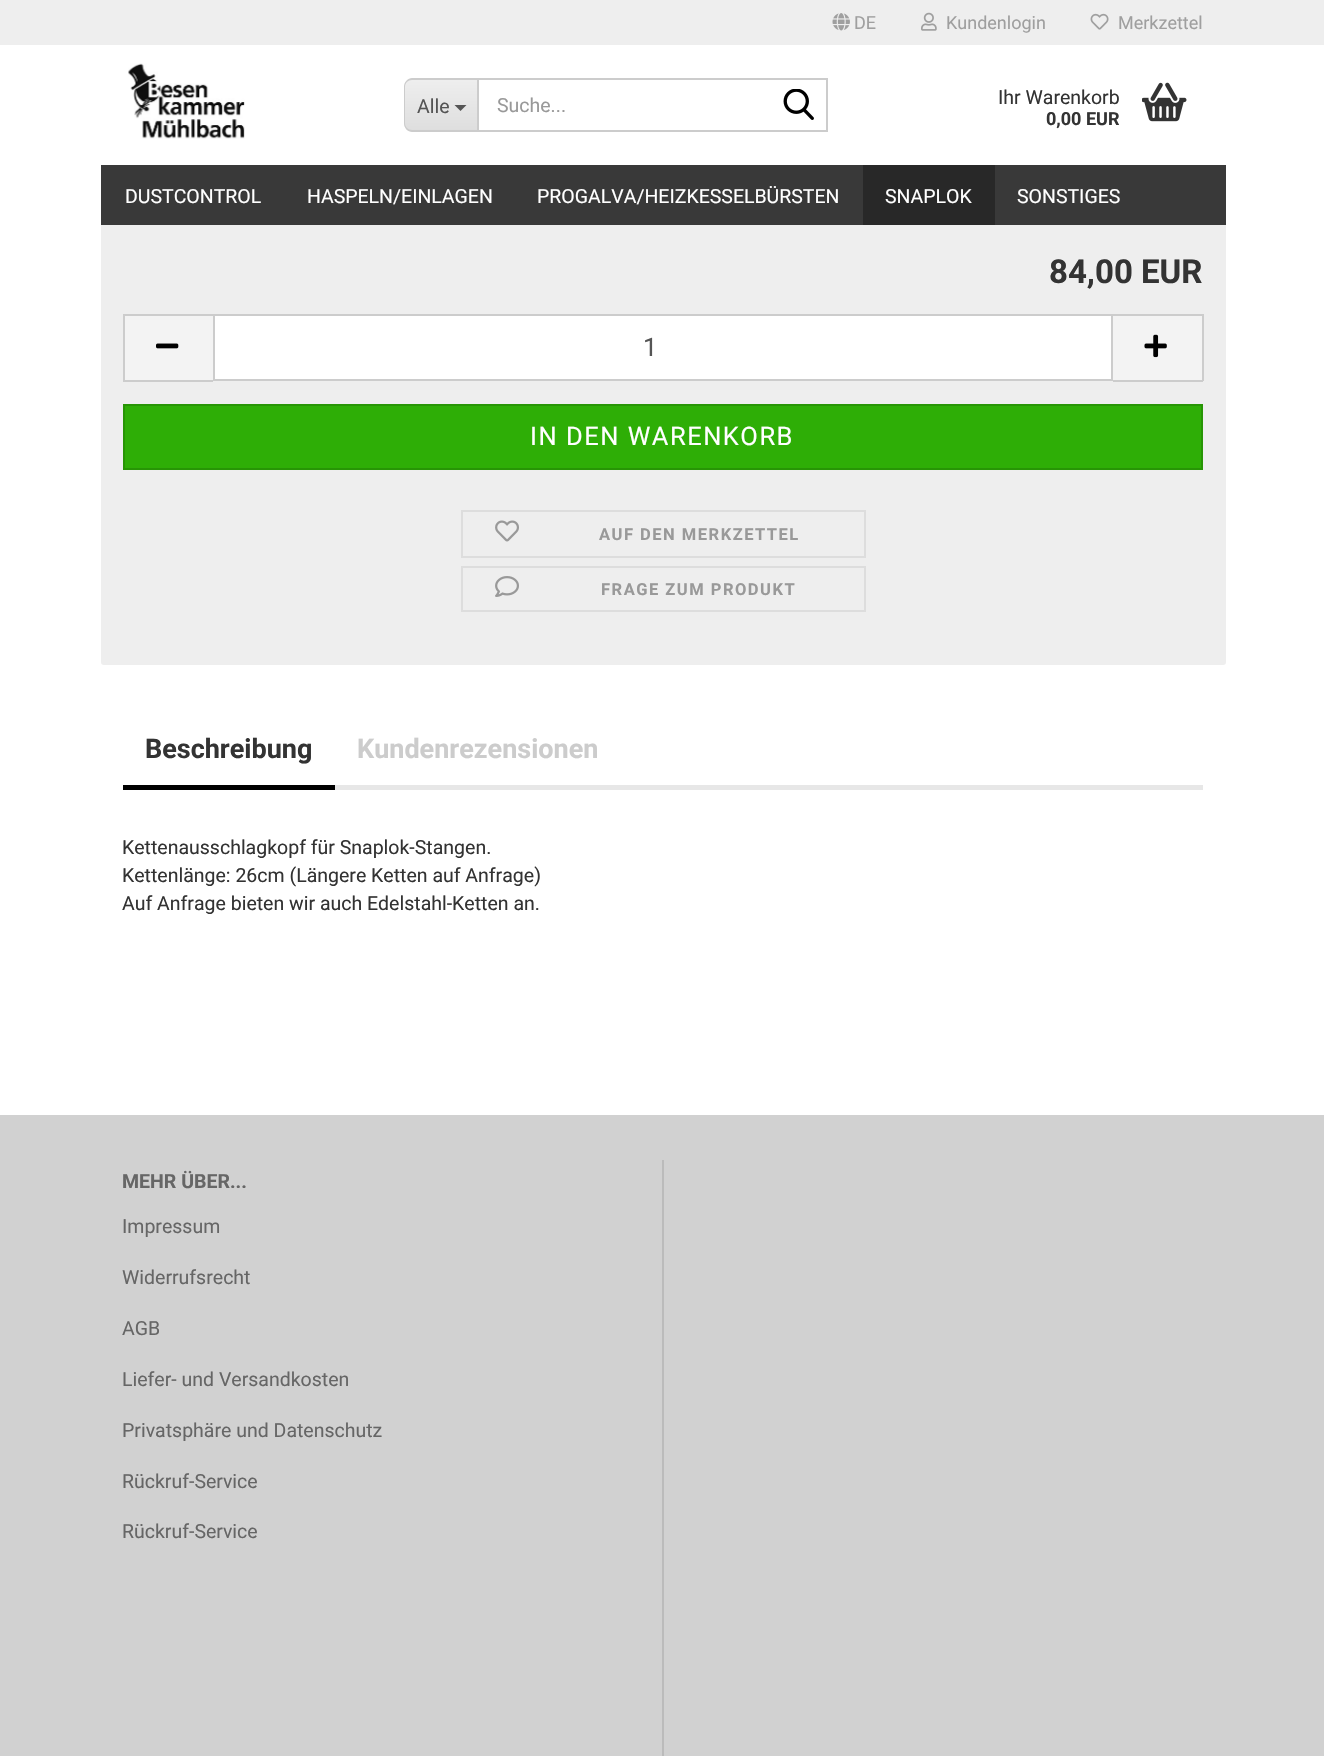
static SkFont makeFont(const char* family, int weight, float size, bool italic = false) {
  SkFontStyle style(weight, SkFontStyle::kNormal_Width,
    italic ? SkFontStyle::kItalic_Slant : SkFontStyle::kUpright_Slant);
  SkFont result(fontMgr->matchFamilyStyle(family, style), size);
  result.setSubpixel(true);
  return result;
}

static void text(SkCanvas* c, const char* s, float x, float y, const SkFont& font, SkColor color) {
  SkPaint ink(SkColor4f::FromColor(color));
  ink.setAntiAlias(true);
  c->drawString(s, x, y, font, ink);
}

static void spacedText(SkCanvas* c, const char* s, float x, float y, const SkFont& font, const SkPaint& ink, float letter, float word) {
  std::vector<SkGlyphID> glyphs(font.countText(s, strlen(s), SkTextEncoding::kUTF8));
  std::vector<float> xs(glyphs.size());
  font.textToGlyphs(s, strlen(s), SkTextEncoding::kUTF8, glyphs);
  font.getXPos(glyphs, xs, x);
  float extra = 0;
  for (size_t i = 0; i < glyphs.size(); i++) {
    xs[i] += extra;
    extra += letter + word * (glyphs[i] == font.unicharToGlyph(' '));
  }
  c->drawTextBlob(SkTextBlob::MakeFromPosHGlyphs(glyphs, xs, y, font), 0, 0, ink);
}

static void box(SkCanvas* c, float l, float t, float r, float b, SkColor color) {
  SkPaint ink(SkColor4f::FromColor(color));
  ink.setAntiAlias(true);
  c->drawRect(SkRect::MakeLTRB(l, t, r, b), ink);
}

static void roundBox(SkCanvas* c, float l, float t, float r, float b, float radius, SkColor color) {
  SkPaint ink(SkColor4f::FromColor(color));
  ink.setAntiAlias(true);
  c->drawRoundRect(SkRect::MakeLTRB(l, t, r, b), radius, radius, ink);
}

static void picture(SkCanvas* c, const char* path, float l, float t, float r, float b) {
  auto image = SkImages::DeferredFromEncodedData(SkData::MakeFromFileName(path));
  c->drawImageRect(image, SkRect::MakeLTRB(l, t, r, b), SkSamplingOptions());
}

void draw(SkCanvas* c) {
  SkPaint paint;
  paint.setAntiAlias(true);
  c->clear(0xffffffff);
  roundBox(c, 101, 104, 1226, 665, 3, 0xffeeeeee);
  box(c, 101, 104, 1226, 225, 0xffffffff);
  box(c, 0, 0, 1324, 45, 0xffeeeeee);
  picture(c, "img_01.png", 832, 13, 850, 31);
  SkFont face1 = makeFont("Roboto", 400, 18);
  text(c, "DE", 854, 29, face1, 0xff9f9f9f);
  picture(c, "img_02.png", 921, 12, 937, 31);
  text(c, "Kundenlogin", 946, 29, face1, 0xff9f9f9f);
  picture(c, "img_03.png", 1090, 13, 1109, 30);
  text(c, "Merkzettel", 1118, 29, face1, 0xff9f9f9f);
  picture(c, "img_04.png", 128, 63, 245, 139);
  c->save();
  c->clipPath(SkPathBuilder().moveTo(413, 78).lineTo(477, 78).lineTo(477, 132).lineTo(413, 132).cubicTo(408, 132, 404, 128, 404, 123).lineTo(404, 87).cubicTo(404, 82, 408, 78, 413, 78).close().detach(), true);
  {
    const SkColor colors[] = {0xffeeeeee, 0xffdedede};
    const float stops[] = {0, 1};
    const SkPoint ends[] = {{441, 80}, {441, 131}};
    paint.setShader(SkGradientShader::MakeLinear(ends, colors, stops, 2, SkTileMode::kClamp));
    paint.setAlpha(255);
  }
  c->drawRect(SkRect::MakeLTRB(404, 80, 477, 131), paint);
  c->restore();
  paint.setShader(nullptr);
  paint.setColor(0xffcccccc);
  c->drawPath(SkPathBuilder(SkPathFillType::kEvenOdd).moveTo(412, 78).lineTo(477, 78).lineTo(477, 132).lineTo(412, 132).cubicTo(408, 132, 404, 128, 404, 123).lineTo(404, 87).cubicTo(404, 82, 408, 78, 412, 78).close().moveTo(412, 80).lineTo(477, 80).lineTo(477, 130).lineTo(412, 130).cubicTo(408, 130, 405, 127, 405, 123).lineTo(405, 87).cubicTo(405, 83, 408, 80, 412, 80).close().detach(), paint);
  SkFont face2 = makeFont("Roboto", 400, 19.5f);
  text(c, "Alle", 417, 113, face2, 0xff555555);
  paint.setColor(0xff555555);
  c->drawPath(SkPathBuilder().moveTo(454.5f, 105).lineTo(466.5f, 105).lineTo(460.5f, 111).close().detach(), paint);
  paint.setStyle(SkPaint::kStroke_Style);
  paint.setStrokeWidth(2);
  paint.setColor(0xffcccccc);
  c->drawRect(SkRect::MakeLTRB(478, 79, 827, 131), paint);
  text(c, "Suche...", 497, 112, face2, 0xff999999);
  picture(c, "img_05.png", 783, 89, 814, 120);
  text(c, "Ihr Warenkorb", 998, 104, face2, 0xff333333);
  SkFont face3 = makeFont("Roboto", 700, 18);
  text(c, "0,00 EUR", 1046, 125, face3, 0xff333333);
  picture(c, "img_06.png", 1142, 82, 1187, 122);
  box(c, 101, 165, 1226, 225, 0xff393939);
  text(c, "DUSTCONTROL", 125, 203, face2, 0xffffffff);
  text(c, "HASPELN/EINLAGEN", 307, 203, face2, 0xffffffff);
  text(c, "PROGALVA/HEIZKESSELBÜRSTEN", 537, 203, face2, 0xffffffff);
  box(c, 863, 165, 995, 225, 0xff282828);
  text(c, "SNAPLOK", 885, 203, face2, 0xffffffff);
  text(c, "SONSTIGES", 1017, 203, face2, 0xffffffff);
  SkFont face4 = makeFont("Roboto", 700, 33);
  text(c, "84,00 EUR", 1049, 283, face4, 0xff333333);
  box(c, 125, 316, 213, 380, 0xfff3f3f3);
  box(c, 123, 314, 213, 316, 0xffcccccc);
  box(c, 123, 380, 213, 382, 0xffcccccc);
  box(c, 123, 314, 125, 381, 0xffcccccc);
  picture(c, "img_07.png", 156, 343, 179, 349);
  paint.setStyle(SkPaint::kFill_Style);
  paint.setColor(0xffffffff);
  c->drawRect(SkRect::MakeLTRB(214, 315, 1112, 380), paint);
  paint.setStyle(SkPaint::kStroke_Style);
  paint.setColor(0xffcccccc);
  c->drawRect(SkRect::MakeLTRB(214, 315, 1112, 380), paint);
  SkFont face5 = makeFont("Roboto", 400, 25.5f);
  text(c, "1", 643, 356, face5, 0xff555555);
  box(c, 1113, 316, 1202, 380, 0xfff3f3f3);
  box(c, 1113, 314, 1203, 316, 0xffcccccc);
  box(c, 1202, 314, 1204, 381, 0xffcccccc);
  box(c, 1113, 380, 1203, 382, 0xffcccccc);
  picture(c, "img_08.png", 1144, 334, 1167, 358);
  paint.setStyle(SkPaint::kFill_Style);
  paint.setColor(0xff2eae06);
  c->drawRect(SkRect::MakeLTRB(124, 405, 1202, 469), paint);
  paint.setStyle(SkPaint::kStroke_Style);
  paint.setColor(0xff279505);
  c->drawRect(SkRect::MakeLTRB(124, 405, 1202, 469), paint);
  paint.setStyle(SkPaint::kFill_Style);
  paint.setColor(0xffffffff);
  spacedText(c, "IN DEN WARENKORB", 530, 445, face5, paint, 1.5f, 0);
  paint.setStyle(SkPaint::kStroke_Style);
  paint.setColor(0xffdddddd);
  c->drawRect(SkRect::MakeLTRB(462, 511, 865, 557), paint);
  picture(c, "img_09.png", 495, 520, 519, 542);
  SkFont face6 = makeFont("Roboto", 700, 16.5f);
  paint.setStyle(SkPaint::kFill_Style);
  paint.setColor(0xff999999);
  spacedText(c, "AUF DEN MERKZETTEL", 599, 540, face6, paint, 1.5f, 0);
  paint.setStyle(SkPaint::kStroke_Style);
  paint.setColor(0xffdddddd);
  c->drawRect(SkRect::MakeLTRB(462, 567, 865, 611), paint);
  picture(c, "img_10.png", 495, 576, 519, 597);
  paint.setStyle(SkPaint::kFill_Style);
  paint.setColor(0xff999999);
  spacedText(c, "FRAGE ZUM PRODUKT", 601, 595, face6, paint, 1.5f, 0);
  box(c, 335, 785, 1203, 790, 0xffe7e7e7);
  box(c, 123, 785, 335, 790, 0xff000000);
  SkFont face7 = makeFont("Roboto", 700, 27);
  text(c, "Beschreibung", 145, 758, face7, 0xff333333);
  text(c, "Kundenrezensionen", 357, 758, face7, 0xffcccccc);
  text(c, "Kettenausschlagkopf für Snaplok-Stangen.", 122, 854, face2, 0xff333333);
  text(c, "Kettenlänge: 26cm (Längere Ketten auf Anfrage)", 122, 882, face2, 0xff333333);
  text(c, "Auf Anfrage bieten wir auch Edelstahl-Ketten an.", 122, 910, face2, 0xff333333);
  box(c, 0, 1115, 1324, 1756, 0xffd1d1d1);
  box(c, 662, 1160, 664, 1756, 0xffbbbbbb);
  SkFont face8 = makeFont("Roboto", 700, 19.5f);
  text(c, "MEHR ÜBER...", 122, 1188, face8, 0xff666666);
  text(c, "Impressum", 122, 1233, face2, 0xff666666);
  text(c, "Widerrufsrecht", 122, 1284, face2, 0xff666666);
  text(c, "AGB", 122, 1335, face2, 0xff666666);
  text(c, "Liefer- und Versandkosten", 122, 1386, face2, 0xff666666);
  text(c, "Privatsphäre und Datenschutz", 122, 1437, face2, 0xff666666);
  text(c, "Rückruf-Service", 122, 1488, face2, 0xff666666);
  text(c, "Rückruf-Service", 122, 1538, face2, 0xff666666);
}
